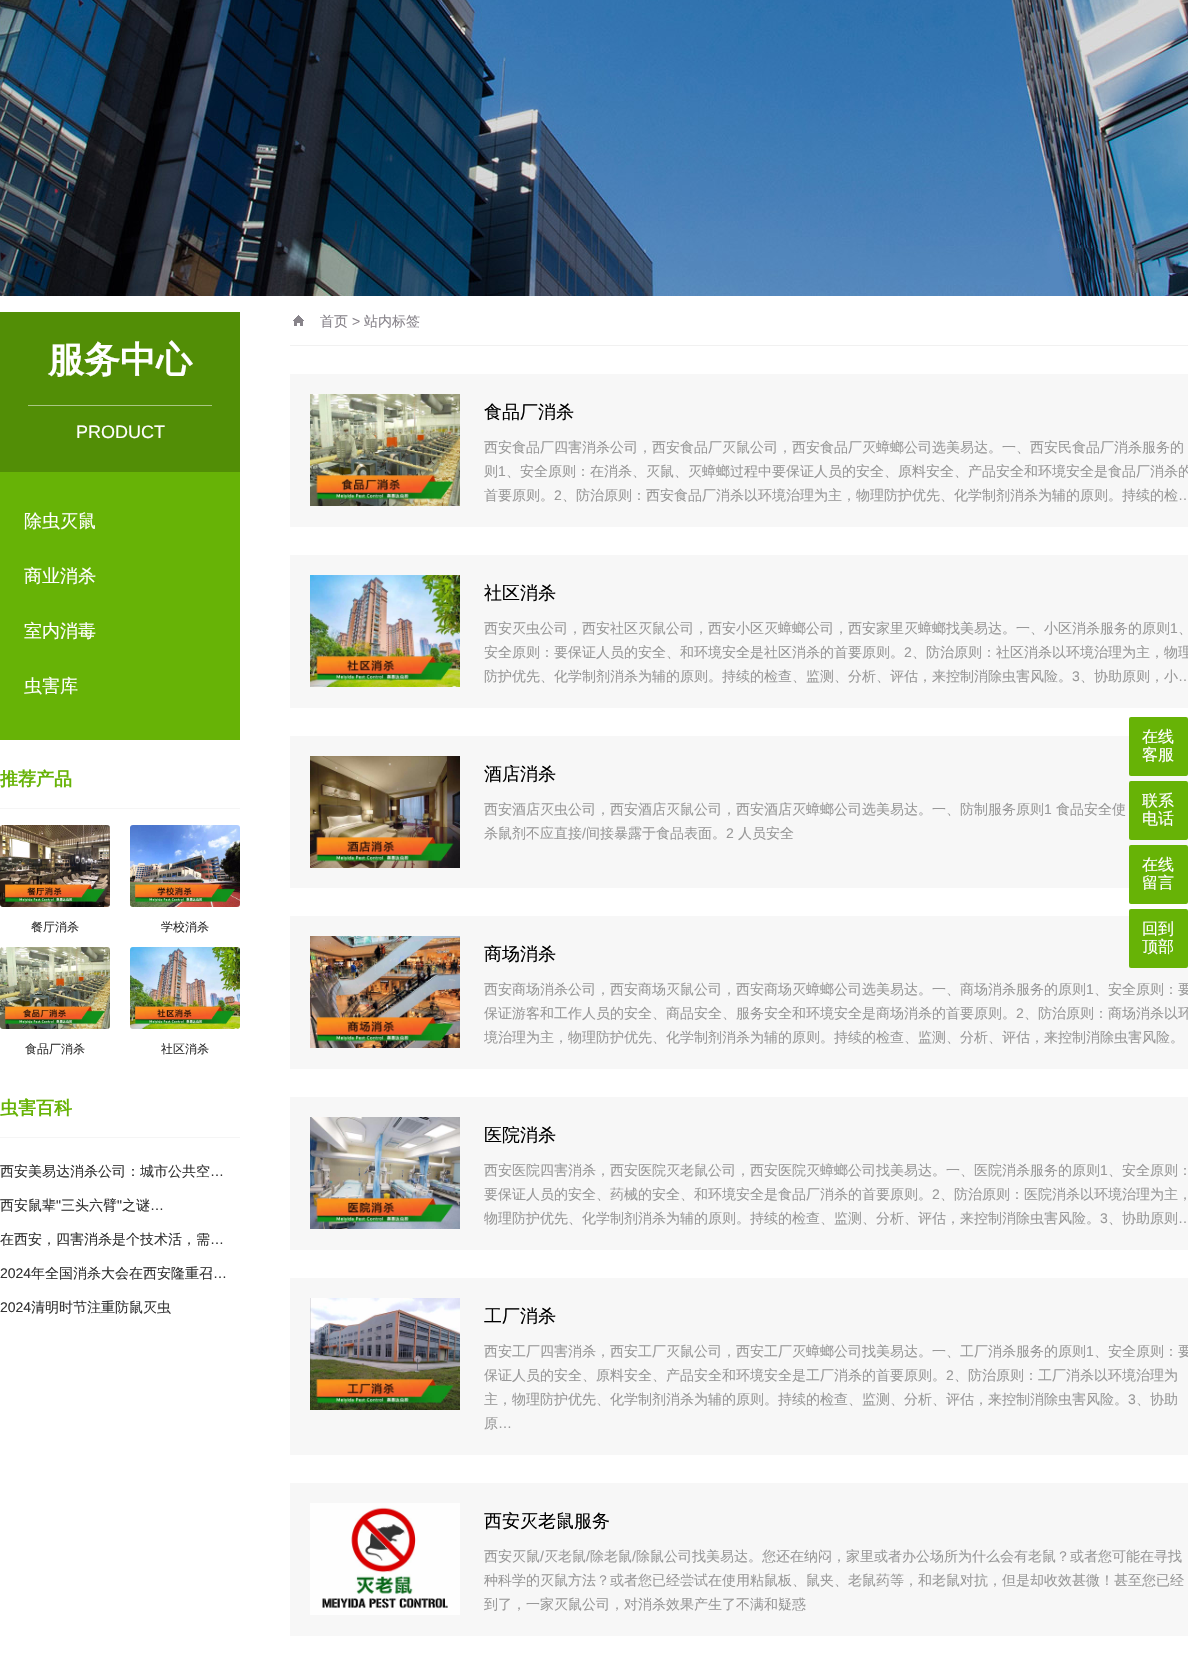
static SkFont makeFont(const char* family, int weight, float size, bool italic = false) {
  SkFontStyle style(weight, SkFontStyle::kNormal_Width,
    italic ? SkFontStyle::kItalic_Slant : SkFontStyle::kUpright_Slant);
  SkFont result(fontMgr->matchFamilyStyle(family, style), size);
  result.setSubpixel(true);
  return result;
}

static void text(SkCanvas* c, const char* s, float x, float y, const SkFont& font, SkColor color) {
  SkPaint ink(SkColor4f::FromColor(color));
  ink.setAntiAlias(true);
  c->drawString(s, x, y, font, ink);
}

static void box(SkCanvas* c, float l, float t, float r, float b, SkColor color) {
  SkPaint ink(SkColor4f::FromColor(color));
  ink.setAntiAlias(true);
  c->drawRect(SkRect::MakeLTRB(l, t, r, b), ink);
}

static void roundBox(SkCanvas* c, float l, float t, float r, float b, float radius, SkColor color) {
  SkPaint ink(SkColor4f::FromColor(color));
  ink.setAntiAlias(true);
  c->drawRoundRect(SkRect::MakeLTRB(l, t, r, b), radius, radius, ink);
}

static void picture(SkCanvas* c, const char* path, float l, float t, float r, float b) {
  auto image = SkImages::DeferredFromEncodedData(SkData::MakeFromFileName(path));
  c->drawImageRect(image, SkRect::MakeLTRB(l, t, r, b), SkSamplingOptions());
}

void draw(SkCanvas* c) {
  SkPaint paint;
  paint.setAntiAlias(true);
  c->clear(0xffffffff);
  picture(c, "img_01.png", 0, 0, 1188, 296);
  box(c, 0, 472, 240, 740, 0xff67b306);
  box(c, 0, 312, 240, 472, 0xff528e06);
  box(c, 28, 405, 212, 406, 0xffa9c783);
  SkFont face1 = makeFont("WenQuanYi Zen Hei", 700, 36);
  text(c, "服务中心", 48, 372, face1, 0xffffffff);
  SkFont face2 = makeFont("Liberation Sans", 400, 18);
  text(c, "PRODUCT", 76, 438, face2, 0xffffffff);
  SkFont face3 = makeFont("WenQuanYi Zen Hei", 500, 18);
  text(c, "除虫灭鼠", 24, 527, face3, 0xffffffff);
  text(c, "商业消杀", 24, 582, face3, 0xffffffff);
  text(c, "室内消毒", 24, 637, face3, 0xffffffff);
  text(c, "虫害库", 24, 692, face3, 0xffffffff);
  box(c, 0, 808, 240, 809, 0xfff5f5f5);
  SkFont face4 = makeFont("WenQuanYi Zen Hei", 700, 18);
  text(c, "推荐产品", 0, 785, face4, 0xff67b306);
  picture(c, "img_02.png", 0, 825, 110, 907);
  SkFont face5 = makeFont("WenQuanYi Zen Hei", 500, 12);
  text(c, "餐厅消杀", 31, 931, face5, 0xff333333);
  picture(c, "img_03.png", 130, 825, 240, 907);
  text(c, "学校消杀", 161, 931, face5, 0xff333333);
  picture(c, "img_04.png", 0, 947, 110, 1029);
  text(c, "食品厂消杀", 25, 1053, face5, 0xff333333);
  picture(c, "img_05.png", 130, 947, 240, 1029);
  text(c, "社区消杀", 161, 1053, face5, 0xff333333);
  box(c, 0, 1137, 240, 1138, 0xfff5f5f5);
  text(c, "虫害百科", 0, 1114, face4, 0xff67b306);
  SkFont face6 = makeFont("WenQuanYi Zen Hei", 500, 14);
  text(c, "西安美易达消杀公司：城市公共空", 0, 1176, face6, 0xff333333);
  SkFont face7 = makeFont("Liberation Sans", 400, 14);
  text(c, "…", 210, 1176, face7, 0xff333333);
  text(c, "西安鼠辈", 0, 1210, face6, 0xff333333);
  text(c, "\"", 56, 1210, face7, 0xff333333);
  text(c, "三头六臂", 61, 1210, face6, 0xff333333);
  text(c, "\"", 117, 1210, face7, 0xff333333);
  text(c, "之谜", 122, 1210, face6, 0xff333333);
  text(c, "…", 150, 1210, face7, 0xff333333);
  text(c, "在西安，四害消杀是个技术活，需", 0, 1244, face6, 0xff333333);
  text(c, "…", 210, 1244, face7, 0xff333333);
  text(c, "2024", 0, 1278, face7, 0xff333333);
  text(c, "年全国消杀大会在西安隆重召", 31, 1278, face6, 0xff333333);
  text(c, "…", 213, 1278, face7, 0xff333333);
  text(c, "2024", 0, 1312, face7, 0xff333333);
  text(c, "清明时节注重防鼠灭虫", 31, 1312, face6, 0xff333333);
  box(c, 290, 345, 1188, 346, 0xfff1f1f1);
  picture(c, "img_06.png", 293, 315, 304, 326);
  text(c, "首页", 320, 326, face6, 0xff88848b);
  text(c, ">", 352, 326, face7, 0xff88848b);
  text(c, "站内标签", 364, 326, face6, 0xff88848b);
  box(c, 290, 374, 1188, 527, 0xfff7f7f7);
  picture(c, "img_07.png", 310, 394, 460, 506);
  text(c, "食品厂消杀", 484, 418, face3, 0xff000000);
  text(c, "西安食品厂四害消杀公司，西安食品厂灭鼠公司，西安食品厂灭蟑螂公司选美易达。一、西安民食品厂消杀服务的", 484, 452, face6, 0xff999999);
  text(c, "则", 484, 476, face6, 0xff999999);
  text(c, "1", 498, 476, face7, 0xff999999);
  text(c, "、安全原则：在消杀、灭鼠、灭蟑螂过程中要保证人员的安全、原料安全、产品安全和环境安全是食品厂消杀的", 506, 476, face6, 0xff999999);
  text(c, "首要原则。", 484, 500, face6, 0xff999999);
  text(c, "2", 554, 500, face7, 0xff999999);
  text(c, "、防治原则：西安食品厂消杀以环境治理为主，物理防护优先、化学制剂消杀为辅的原则。持续的检", 562, 500, face6, 0xff999999);
  text(c, "…", 1178, 500, face7, 0xff999999);
  box(c, 290, 555, 1188, 708, 0xfff7f7f7);
  picture(c, "img_08.png", 310, 575, 460, 687);
  text(c, "社区消杀", 484, 599, face3, 0xff000000);
  text(c, "西安灭虫公司，西安社区灭鼠公司，西安小区灭蟑螂公司，西安家里灭蟑螂找美易达。一、小区消杀服务的原则", 484, 633, face6, 0xff999999);
  text(c, "1", 1170, 633, face7, 0xff999999);
  text(c, "、", 1178, 633, face6, 0xff999999);
  text(c, "安全原则：要保证人员的安全、和环境安全是社区消杀的首要原则。", 484, 657, face6, 0xff999999);
  text(c, "2", 904, 657, face7, 0xff999999);
  text(c, "、防治原则：社区消杀以环境治理为主，物理", 912, 657, face6, 0xff999999);
  text(c, "防护优先、化学制剂消杀为辅的原则。持续的检查、监测、分析、评估，来控制消除虫害风险。", 484, 681, face6, 0xff999999);
  text(c, "3", 1072, 681, face7, 0xff999999);
  text(c, "、协助原则，小", 1080, 681, face6, 0xff999999);
  text(c, "…", 1178, 681, face7, 0xff999999);
  box(c, 290, 736, 1188, 888, 0xfff7f7f7);
  picture(c, "img_09.png", 310, 756, 460, 868);
  text(c, "酒店消杀", 484, 780, face3, 0xff000000);
  text(c, "西安酒店灭虫公司，西安酒店灭鼠公司，西安酒店灭蟑螂公司选美易达。一、防制服务原则", 484, 814, face6, 0xff999999);
  text(c, "1", 1044, 814, face7, 0xff999999);
  text(c, "食品安全使", 1056, 814, face6, 0xff999999);
  text(c, "杀鼠剂不应直接", 484, 838, face6, 0xff999999);
  text(c, "/", 582, 838, face7, 0xff999999);
  text(c, "间接暴露于食品表面。", 586, 838, face6, 0xff999999);
  text(c, "2", 726, 838, face7, 0xff999999);
  text(c, "人员安全", 738, 838, face6, 0xff999999);
  box(c, 290, 916, 1188, 1069, 0xfff7f7f7);
  picture(c, "img_10.png", 310, 936, 460, 1048);
  text(c, "商场消杀", 484, 960, face3, 0xff000000);
  text(c, "西安商场消杀公司，西安商场灭鼠公司，西安商场灭蟑螂公司选美易达。一、商场消杀服务的原则", 484, 994, face6, 0xff999999);
  text(c, "1", 1086, 994, face7, 0xff999999);
  text(c, "、安全原则：要", 1094, 994, face6, 0xff999999);
  text(c, "保证游客和工作人员的安全、商品安全、服务安全和环境安全是商场消杀的首要原则。", 484, 1018, face6, 0xff999999);
  text(c, "2", 1016, 1018, face7, 0xff999999);
  text(c, "、防治原则：商场消杀以环", 1024, 1018, face6, 0xff999999);
  text(c, "境治理为主，物理防护优先、化学制剂消杀为辅的原则。持续的检查、监测、分析、评估，来控制消除虫害风险。", 484, 1042, face6, 0xff999999);
  box(c, 290, 1097, 1188, 1250, 0xfff7f7f7);
  picture(c, "img_11.png", 310, 1117, 460, 1229);
  text(c, "医院消杀", 484, 1141, face3, 0xff000000);
  text(c, "西安医院四害消杀，西安医院灭老鼠公司，西安医院灭蟑螂公司找美易达。一、医院消杀服务的原则", 484, 1175, face6, 0xff999999);
  text(c, "1", 1100, 1175, face7, 0xff999999);
  text(c, "、安全原则：", 1108, 1175, face6, 0xff999999);
  text(c, "要保证人员的安全、药械的安全、和环境安全是食品厂消杀的首要原则。", 484, 1199, face6, 0xff999999);
  text(c, "2", 932, 1199, face7, 0xff999999);
  text(c, "、防治原则：医院消杀以环境治理为主，", 940, 1199, face6, 0xff999999);
  text(c, "物理防护优先、化学制剂消杀为辅的原则。持续的检查、监测、分析、评估，来控制消除虫害风险。", 484, 1223, face6, 0xff999999);
  text(c, "3", 1100, 1223, face7, 0xff999999);
  text(c, "、协助原则", 1108, 1223, face6, 0xff999999);
  text(c, "…", 1178, 1223, face7, 0xff999999);
  box(c, 290, 1278, 1188, 1455, 0xfff7f7f7);
  picture(c, "img_12.png", 310, 1298, 460, 1410);
  text(c, "工厂消杀", 484, 1322, face3, 0xff000000);
  text(c, "西安工厂四害消杀，西安工厂灭鼠公司，西安工厂灭蟑螂公司找美易达。一、工厂消杀服务的原则", 484, 1356, face6, 0xff999999);
  text(c, "1", 1086, 1356, face7, 0xff999999);
  text(c, "、安全原则：要", 1094, 1356, face6, 0xff999999);
  text(c, "保证人员的安全、原料安全、产品安全和环境安全是工厂消杀的首要原则。", 484, 1380, face6, 0xff999999);
  text(c, "2", 946, 1380, face7, 0xff999999);
  text(c, "、防治原则：工厂消杀以环境治理为", 954, 1380, face6, 0xff999999);
  text(c, "主，物理防护优先、化学制剂消杀为辅的原则。持续的检查、监测、分析、评估，来控制消除虫害风险。", 484, 1404, face6, 0xff999999);
  text(c, "3", 1128, 1404, face7, 0xff999999);
  text(c, "、协助", 1136, 1404, face6, 0xff999999);
  text(c, "原", 484, 1428, face6, 0xff999999);
  text(c, "…", 498, 1428, face7, 0xff999999);
  box(c, 290, 1483, 1188, 1636, 0xfff7f7f7);
  picture(c, "img_13.png", 310, 1503, 460, 1615);
  text(c, "西安灭老鼠服务", 484, 1527, face3, 0xff000000);
  text(c, "西安灭鼠", 484, 1561, face6, 0xff999999);
  text(c, "/", 540, 1561, face7, 0xff999999);
  text(c, "灭老鼠", 544, 1561, face6, 0xff999999);
  text(c, "/", 586, 1561, face7, 0xff999999);
  text(c, "除老鼠", 590, 1561, face6, 0xff999999);
  text(c, "/", 632, 1561, face7, 0xff999999);
  text(c, "除鼠公司找美易达。您还在纳闷，家里或者办公场所为什么会有老鼠？或者您可能在寻找", 636, 1561, face6, 0xff999999);
  text(c, "种科学的灭鼠方法？或者您已经尝试在使用粘鼠板、鼠夹、老鼠药等，和老鼠对抗，但是却收效甚微！甚至您已经", 484, 1585, face6, 0xff999999);
  text(c, "到了，一家灭鼠公司，对消杀效果产生了不满和疑惑", 484, 1609, face6, 0xff999999);
  roundBox(c, 1129, 717, 1188, 776, 2, 0xff67b306);
  SkFont face8 = makeFont("WenQuanYi Zen Hei", 500, 16);
  text(c, "在线", 1142, 742, face8, 0xffffffff);
  text(c, "客服", 1142, 760, face8, 0xffffffff);
  roundBox(c, 1129, 781, 1188, 840, 2, 0xff67b306);
  text(c, "联系", 1142, 806, face8, 0xffffffff);
  text(c, "电话", 1142, 824, face8, 0xffffffff);
  roundBox(c, 1129, 845, 1188, 904, 2, 0xff67b306);
  text(c, "在线", 1142, 870, face8, 0xffffffff);
  text(c, "留言", 1142, 888, face8, 0xffffffff);
  roundBox(c, 1129, 909, 1188, 968, 2, 0xff67b306);
  text(c, "回到", 1142, 934, face8, 0xffffffff);
  text(c, "顶部", 1142, 952, face8, 0xffffffff);
}
